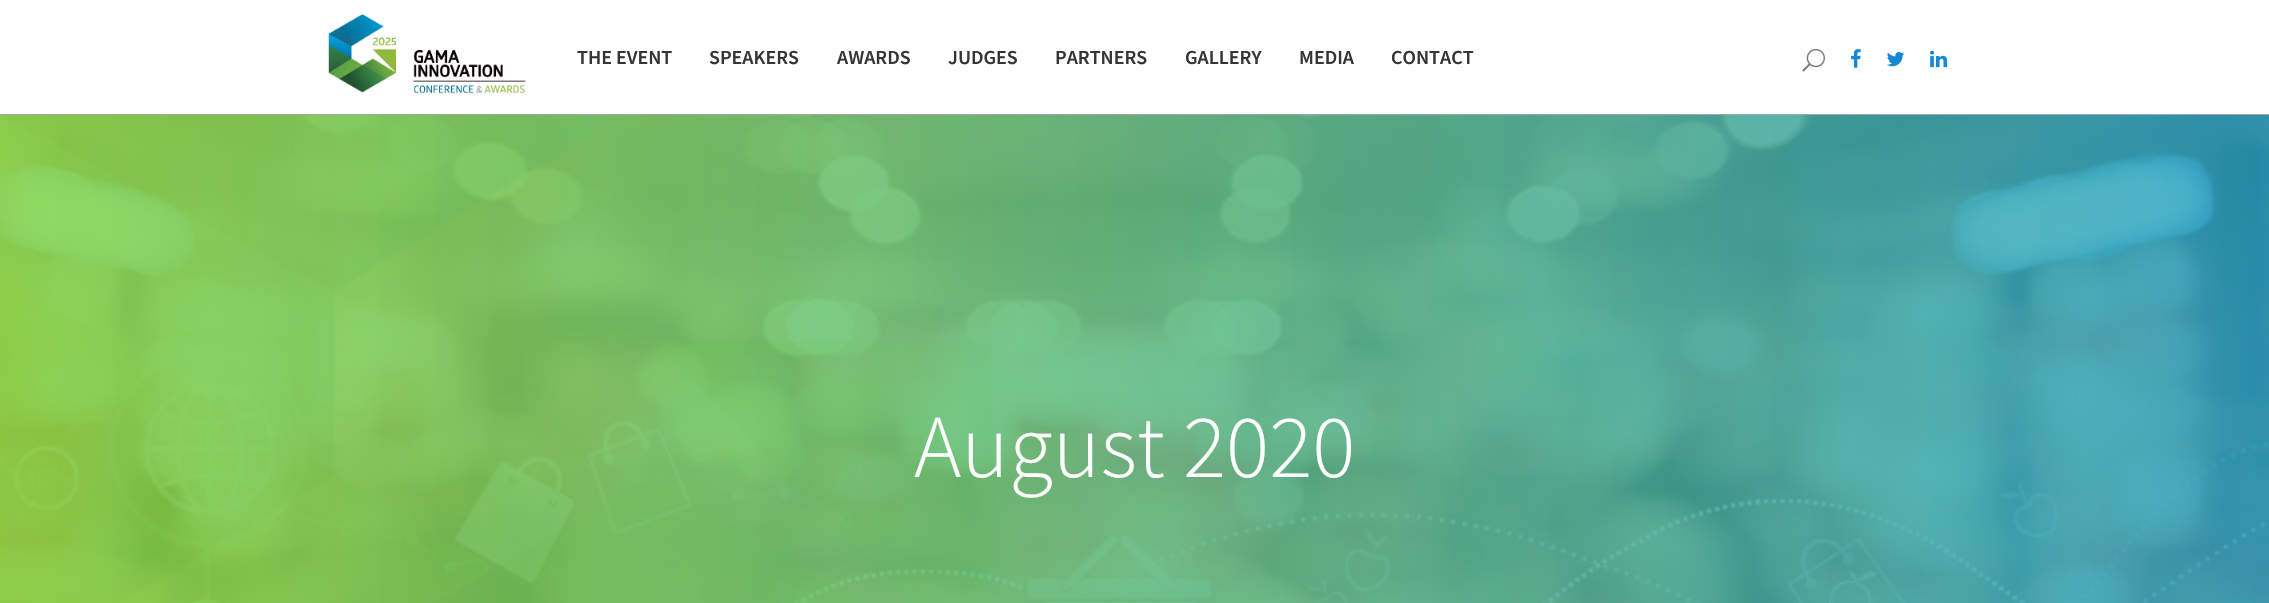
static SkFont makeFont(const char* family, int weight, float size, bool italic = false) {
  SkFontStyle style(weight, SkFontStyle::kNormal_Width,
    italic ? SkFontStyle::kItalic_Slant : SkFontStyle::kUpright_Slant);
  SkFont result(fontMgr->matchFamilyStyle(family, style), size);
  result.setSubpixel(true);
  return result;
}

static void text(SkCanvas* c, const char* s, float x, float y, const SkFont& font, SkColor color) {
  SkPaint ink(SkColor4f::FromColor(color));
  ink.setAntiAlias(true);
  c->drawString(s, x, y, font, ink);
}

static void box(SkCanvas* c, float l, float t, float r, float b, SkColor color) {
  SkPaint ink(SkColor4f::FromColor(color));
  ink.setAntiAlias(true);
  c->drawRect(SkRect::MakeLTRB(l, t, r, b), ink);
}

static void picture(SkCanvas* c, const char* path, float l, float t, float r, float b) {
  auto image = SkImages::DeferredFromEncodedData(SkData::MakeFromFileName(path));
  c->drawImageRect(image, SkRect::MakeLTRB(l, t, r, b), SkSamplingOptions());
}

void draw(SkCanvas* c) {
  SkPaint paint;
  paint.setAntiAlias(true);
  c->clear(0xffffffff);
  box(c, 0, 114, 2269, 115, 0xffa5a5a5);
  picture(c, "img_01.png", 328, 14, 526, 94);
  SkFont face1 = makeFont("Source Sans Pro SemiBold", 600, 20);
  text(c, "THE EVENT", 577, 64, face1, 0xff353535);
  text(c, "SPEAKERS", 709, 64, face1, 0xff353535);
  text(c, "AWARDS", 837, 64, face1, 0xff353535);
  text(c, "JUDGES", 948, 64, face1, 0xff353535);
  text(c, "PARTNERS", 1055, 64, face1, 0xff353535);
  text(c, "GALLERY", 1185, 64, face1, 0xff353535);
  text(c, "MEDIA", 1299, 64, face1, 0xff353535);
  text(c, "CONTACT", 1391, 64, face1, 0xff353535);
  picture(c, "img_02.png", 1802, 48, 1825, 72);
  picture(c, "img_03.png", 1851, 49, 1861, 68);
  picture(c, "img_04.png", 1887, 52, 1905, 67);
  picture(c, "img_05.png", 1930, 50, 1948, 68);
  picture(c, "img_06.png", 0, 115, 2269, 603);
  SkFont face2 = makeFont("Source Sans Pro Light", 300, 90);
  text(c, "August 2020", 914, 477, face2, 0xffffffff);
}
